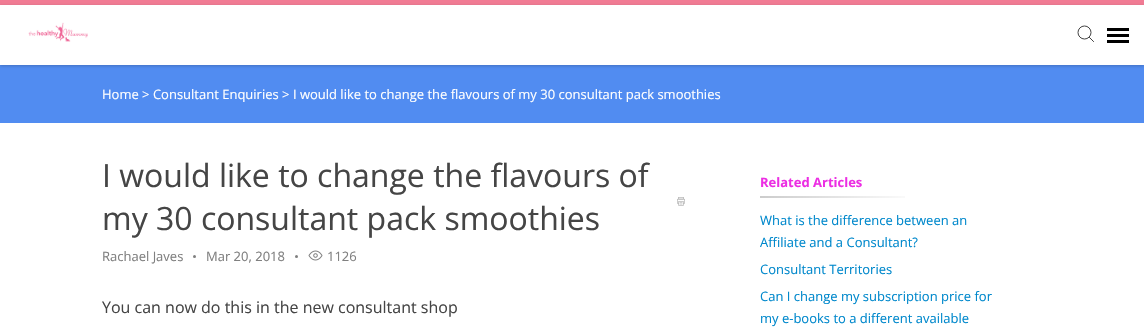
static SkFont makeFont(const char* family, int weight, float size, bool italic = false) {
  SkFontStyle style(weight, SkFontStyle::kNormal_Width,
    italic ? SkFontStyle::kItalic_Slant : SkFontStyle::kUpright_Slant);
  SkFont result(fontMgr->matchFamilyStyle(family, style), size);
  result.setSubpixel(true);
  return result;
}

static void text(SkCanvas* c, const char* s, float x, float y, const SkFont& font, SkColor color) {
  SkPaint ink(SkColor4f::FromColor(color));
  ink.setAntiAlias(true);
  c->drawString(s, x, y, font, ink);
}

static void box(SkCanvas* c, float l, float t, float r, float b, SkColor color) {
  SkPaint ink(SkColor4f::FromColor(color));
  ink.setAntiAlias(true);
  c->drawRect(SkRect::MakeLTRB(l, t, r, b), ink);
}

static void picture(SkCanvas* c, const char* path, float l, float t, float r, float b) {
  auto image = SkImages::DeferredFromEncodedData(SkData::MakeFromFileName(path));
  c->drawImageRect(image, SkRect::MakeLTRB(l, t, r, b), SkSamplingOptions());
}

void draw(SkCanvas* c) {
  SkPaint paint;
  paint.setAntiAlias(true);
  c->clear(0xffffffff);
  box(c, 0, 0, 1144, 5, 0xfff17b94);
  box(c, 0, 65, 1144, 123, 0xff518cf1);
  c->save();
  c->clipPath(SkPathBuilder(SkPathFillType::kEvenOdd).moveTo(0, 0).lineTo(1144, 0).lineTo(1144, 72).lineTo(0, 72).close().moveTo(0, 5).lineTo(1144, 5).lineTo(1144, 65).lineTo(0, 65).close().detach(), true);
  paint.setColor(0x33000000);
  paint.setMaskFilter(SkMaskFilter::MakeBlur(kNormal_SkBlurStyle, 1.5f));
  c->drawRect(SkRect::MakeLTRB(0, 6, 1144, 66), paint);
  paint.setMaskFilter(nullptr);
  c->restore();
  picture(c, "img_01.png", 28, 22, 88, 42);
  paint.setStyle(SkPaint::kStroke_Style);
  paint.setStrokeWidth(1);
  paint.setColor(0xff424242);
  c->drawCircle(1084.5f, 32.5f, 6.5f, paint);
  paint.setStrokeCap(SkPaint::kSquare_Cap);
  c->drawPath(SkPathBuilder().moveTo(1089.5f, 37.5f).lineTo(1093.5f, 41.5f).detach(), paint);
  box(c, 1107, 28, 1129, 31, 0xff000000);
  box(c, 1107, 34, 1129, 37, 0xff000000);
  box(c, 1107, 40, 1129, 43, 0xff000000);
  SkFont face1 = makeFont("Open Sans", 400, 13);
  text(c, "Home > Consultant Enquiries > I would like to change the flavours of my 30 consultant pack smoothies", 102, 99, face1, 0xffffffff);
  SkFont face2 = makeFont("Open Sans", 400, 32);
  text(c, "I would like to change the flavours of", 102, 187, face2, 0xff454545);
  text(c, "my 30 consultant pack smoothies", 102, 230, face2, 0xff454545);
  picture(c, "img_02.png", 677, 197, 685, 206);
  text(c, "Rachael Javes", 102, 261, face1, 0xff808080);
  paint.setStyle(SkPaint::kFill_Style);
  paint.setColor(0xff808080);
  c->drawCircle(194.5f, 256.5f, 1.5f, paint);
  text(c, "Mar 20, 2018", 206, 261, face1, 0xff808080);
  c->drawCircle(296.5f, 256.5f, 1.5f, paint);
  picture(c, "img_03.png", 308, 250, 323, 261);
  text(c, "1126", 327, 261, face1, 0xff808080);
  SkFont face3 = makeFont("Open Sans", 400, 16);
  text(c, "You can now do this in the new consultant shop", 102, 313, face3, 0xff454545);
  picture(c, "img_04.png", 760, 196, 905, 198);
  SkFont face4 = makeFont("Open Sans", 700, 13);
  text(c, "Related Articles", 760, 187, face4, 0xffec2ee3);
  text(c, "What is the difference between an", 760, 225, face1, 0xff0088cc);
  text(c, "Affiliate and a Consultant?", 760, 247, face1, 0xff0088cc);
  text(c, "Consultant Territories", 760, 274, face1, 0xff0088cc);
  text(c, "Can I change my subscription price for", 760, 301, face1, 0xff0088cc);
  text(c, "my e-books to a different available", 760, 323, face1, 0xff0088cc);
}
